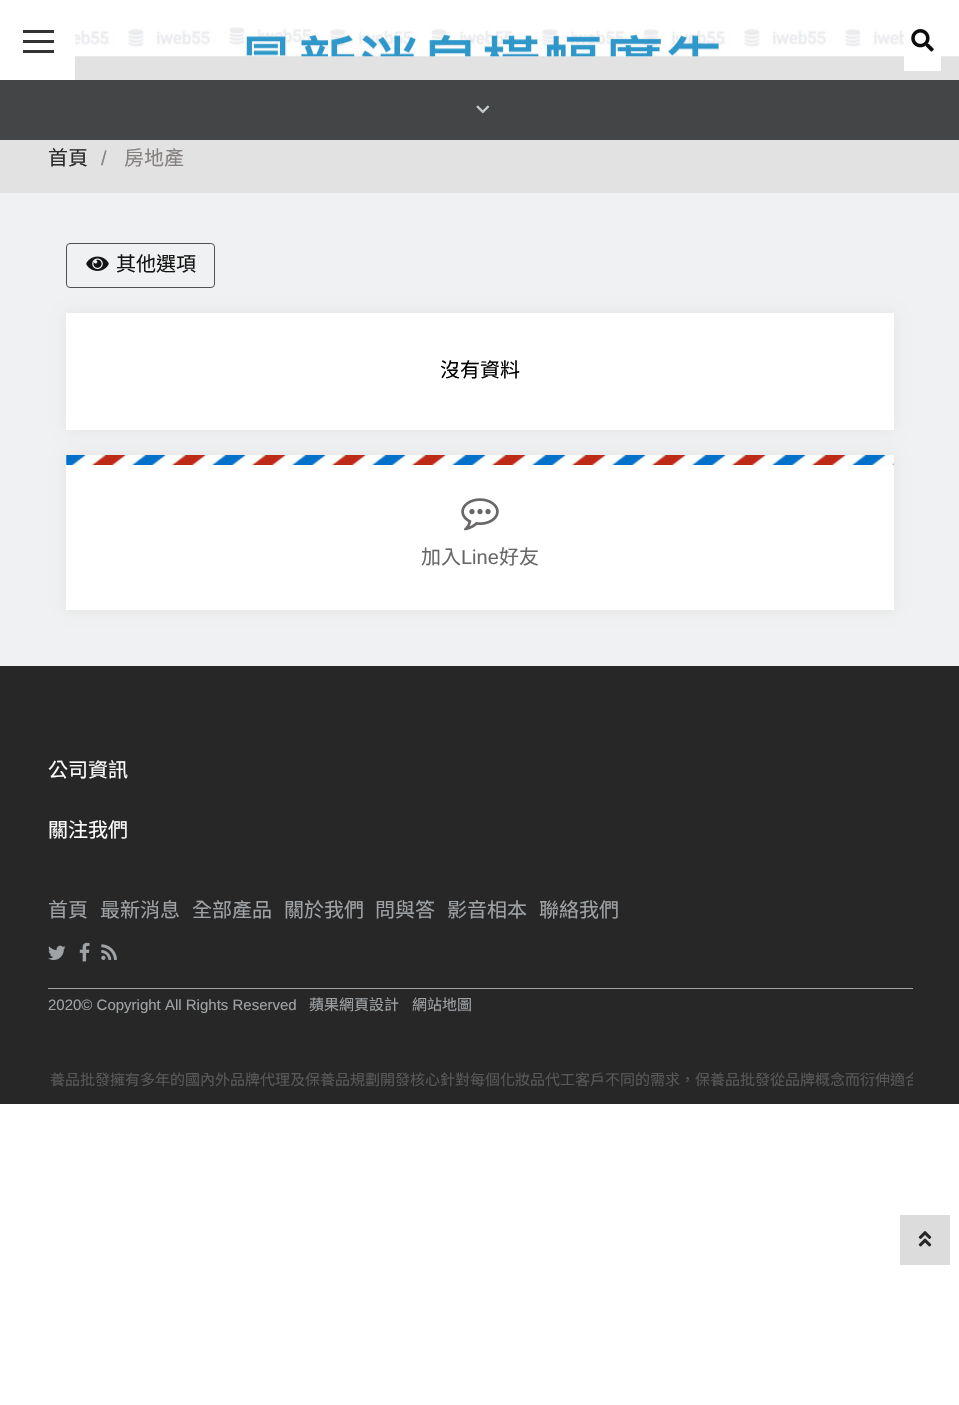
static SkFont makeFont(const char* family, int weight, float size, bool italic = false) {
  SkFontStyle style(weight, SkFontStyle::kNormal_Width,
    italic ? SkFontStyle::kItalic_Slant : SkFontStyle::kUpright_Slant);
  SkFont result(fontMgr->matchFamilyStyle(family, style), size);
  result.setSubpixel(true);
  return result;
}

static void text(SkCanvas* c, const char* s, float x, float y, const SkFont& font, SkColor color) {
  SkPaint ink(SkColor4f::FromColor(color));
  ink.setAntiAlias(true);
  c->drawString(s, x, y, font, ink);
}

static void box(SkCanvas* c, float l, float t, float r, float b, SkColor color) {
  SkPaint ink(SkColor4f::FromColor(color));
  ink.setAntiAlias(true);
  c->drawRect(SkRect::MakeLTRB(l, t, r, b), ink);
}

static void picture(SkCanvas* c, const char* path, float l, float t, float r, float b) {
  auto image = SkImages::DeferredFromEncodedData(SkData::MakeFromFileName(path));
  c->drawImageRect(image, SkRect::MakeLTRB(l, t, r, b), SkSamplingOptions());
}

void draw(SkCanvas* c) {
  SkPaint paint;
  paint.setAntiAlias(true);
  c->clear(0xffffffff);
  box(c, 0, 56, 959, 193, 0xffe2e2e2);
  picture(c, "img_01.png", 75, 27, 959, 57);
  box(c, 0, 56, 75, 80, 0xffffffff);
  box(c, 23, 30, 54, 33, 0xff333333);
  box(c, 23, 40, 54, 43, 0xff333333);
  box(c, 23, 50, 54, 53, 0xff333333);
  box(c, 904, 30, 941, 71, 0xffffffff);
  picture(c, "img_02.png", 911, 29, 934, 52);
  box(c, 0, 80, 959, 140, 0xff434546);
  picture(c, "img_03.png", 476, 105, 490, 114);
  SkFont face1 = makeFont("Noto Sans CJK TC", 400, 20);
  text(c, "首頁", 48, 165, face1, 0xff2b2a2a);
  SkFont face2 = makeFont("Liberation Sans", 400, 20);
  text(c, "/", 101, 165, face2, 0xff868181);
  text(c, "房地產", 124, 165, face1, 0xff868181);
  box(c, 0, 193, 959, 666, 0xfff0f1f2);
  paint.setStyle(SkPaint::kStroke_Style);
  paint.setStrokeWidth(1);
  paint.setColor(0xff525252);
  c->drawRoundRect(SkRect::MakeLTRB(66.5f, 243.5f, 214.5f, 287.5f), 3.5f, 3.5f, paint);
  picture(c, "img_04.png", 86, 256, 109, 271);
  text(c, "其他選項", 116, 271, face1, 0xff141414);
  paint.setStyle(SkPaint::kFill_Style);
  paint.setColor(0xffe2e2e2);
  paint.setMaskFilter(SkMaskFilter::MakeBlur(kNormal_SkBlurStyle, 6));
  c->drawRect(SkRect::MakeLTRB(66, 313, 894, 430), paint);
  paint.setMaskFilter(nullptr);
  box(c, 66, 313, 894, 430, 0xffffffff);
  text(c, "沒有資料", 440, 377, face1, 0xff000000);
  paint.setMaskFilter(SkMaskFilter::MakeBlur(kNormal_SkBlurStyle, 6));
  c->drawRect(SkRect::MakeLTRB(66, 455, 894, 610), paint);
  paint.setMaskFilter(nullptr);
  box(c, 66, 455, 894, 610, 0xffffffff);
  picture(c, "img_05.png", 66, 455, 894, 465);
  picture(c, "img_06.png", 461, 498, 499, 531);
  text(c, "加入", 421, 564, face1, 0xff696666);
  text(c, "Line", 461, 564, face2, 0xff696666);
  text(c, "好友", 499, 564, face1, 0xff696666);
  box(c, 0, 666, 959, 1104, 0xff272727);
  text(c, "公司資訊", 48, 777, face1, 0xffffffff);
  text(c, "關注我們", 48, 837, face1, 0xffffffff);
  text(c, "首頁", 48, 917, face1, 0xff9fa3a6);
  text(c, "最新消息", 100, 917, face1, 0xff9fa3a6);
  text(c, "全部產品", 192, 917, face1, 0xff9fa3a6);
  text(c, "關於我們", 284, 917, face1, 0xff9fa3a6);
  text(c, "問與答", 375, 917, face1, 0xff9fa3a6);
  text(c, "影音相本", 447, 917, face1, 0xff9fa3a6);
  text(c, "聯絡我們", 539, 917, face1, 0xff9fa3a6);
  picture(c, "img_07.png", 48, 945, 66, 960);
  picture(c, "img_08.png", 79, 942, 90, 962);
  picture(c, "img_09.png", 101, 944, 117, 960);
  box(c, 48, 988, 913, 989, 0xff9fa3a6);
  SkFont face3 = makeFont("Liberation Sans", 400, 15);
  text(c, "2020© Copyright All Rights Reserved", 48, 1010, face3, 0xff9fa3a6);
  SkFont face4 = makeFont("Noto Sans CJK TC", 400, 15);
  text(c, "蘋果網頁設計", 309, 1010, face4, 0xff9fa3a6);
  text(c, "網站地圖", 412, 1010, face4, 0xff9fa3a6);
  c->save();
  c->clipRect(SkRect::MakeLTRB(48, 1069, 913, 1091));
  text(c, "養品批發擁有多年的國內外品牌代理及保養品規劃開發核心針對每個化妝品代工客戶不同的需求，保養品批發從品牌概念而衍伸適合", 50, 1085, face4, 0xff585858);
  c->restore();
  box(c, 900, 1215, 950, 1265, 0xffdcdcdc);
  picture(c, "img_10.png", 918, 1231, 932, 1247);
}
